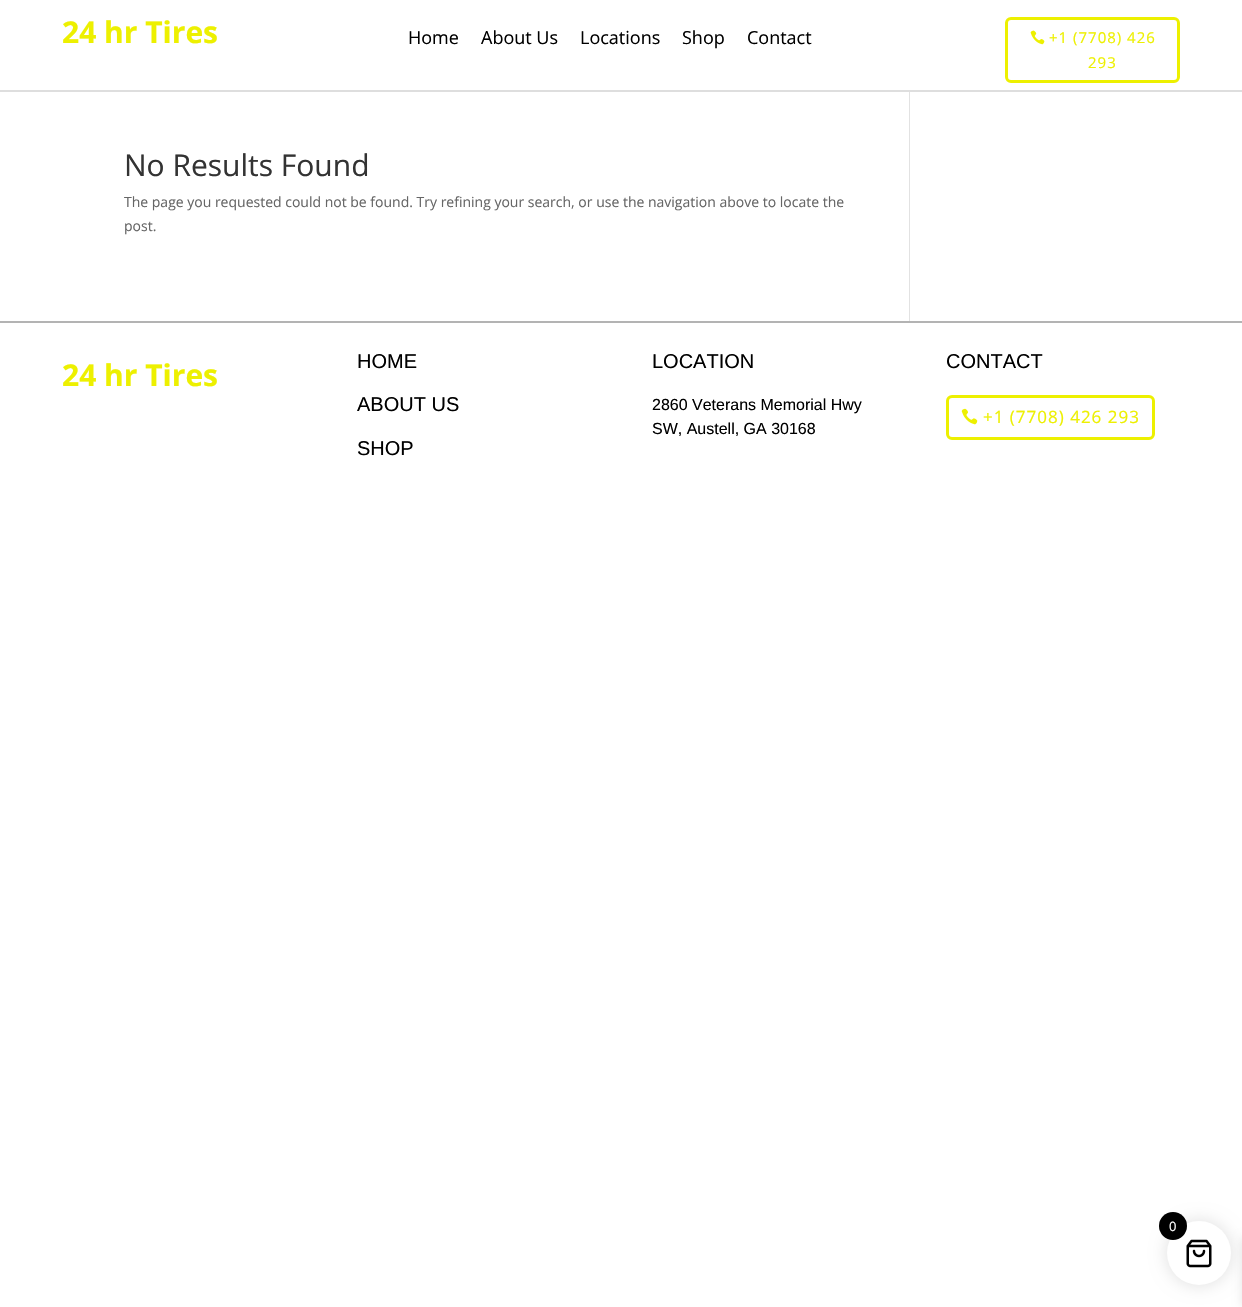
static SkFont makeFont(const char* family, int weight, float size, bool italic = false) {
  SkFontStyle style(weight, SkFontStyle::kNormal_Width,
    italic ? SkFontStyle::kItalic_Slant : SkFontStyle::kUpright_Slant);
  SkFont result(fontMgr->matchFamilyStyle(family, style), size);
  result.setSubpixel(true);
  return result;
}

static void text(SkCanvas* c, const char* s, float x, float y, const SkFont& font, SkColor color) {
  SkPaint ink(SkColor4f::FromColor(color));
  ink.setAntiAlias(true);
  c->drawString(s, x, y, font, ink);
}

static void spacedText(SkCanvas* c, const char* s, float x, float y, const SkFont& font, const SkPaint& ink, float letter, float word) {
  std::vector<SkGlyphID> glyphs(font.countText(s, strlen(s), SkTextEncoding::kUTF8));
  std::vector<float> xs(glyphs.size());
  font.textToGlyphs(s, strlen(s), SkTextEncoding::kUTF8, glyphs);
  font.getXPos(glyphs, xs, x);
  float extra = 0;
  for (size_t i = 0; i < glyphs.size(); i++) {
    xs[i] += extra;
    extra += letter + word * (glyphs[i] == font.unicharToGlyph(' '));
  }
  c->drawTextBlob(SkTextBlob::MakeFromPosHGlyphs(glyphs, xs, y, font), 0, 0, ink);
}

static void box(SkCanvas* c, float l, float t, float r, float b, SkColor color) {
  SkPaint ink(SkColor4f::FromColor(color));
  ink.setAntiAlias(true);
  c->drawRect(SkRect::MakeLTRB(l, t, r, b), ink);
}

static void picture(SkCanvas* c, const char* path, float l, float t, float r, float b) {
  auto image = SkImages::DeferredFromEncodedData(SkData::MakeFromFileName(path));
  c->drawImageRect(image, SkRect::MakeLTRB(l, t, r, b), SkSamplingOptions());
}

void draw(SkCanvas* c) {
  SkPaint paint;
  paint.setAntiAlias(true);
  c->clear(0xffffffff);
  box(c, 0, 90, 1242, 92, 0xffdedede);
  SkFont face1 = makeFont("Open Sans", 700, 30);
  text(c, "24 hr Tires", 62, 43, face1, 0xffedf000);
  SkFont face2 = makeFont("Open Sans", 400, 18);
  text(c, "Home", 408, 44, face2, 0xff000000);
  text(c, "About Us", 481, 44, face2, 0xff000000);
  text(c, "Locations", 580, 44, face2, 0xff000000);
  text(c, "Shop", 682, 44, face2, 0xff000000);
  text(c, "Contact", 747, 44, face2, 0xff000000);
  paint.setStyle(SkPaint::kStroke_Style);
  paint.setStrokeWidth(3);
  paint.setColor(0xffedf000);
  c->drawRoundRect(SkRect::MakeLTRB(1006.5f, 18.5f, 1178.5f, 81.5f), 4.5f, 4.5f, paint);
  picture(c, "img_01.png", 1030, 30, 1045, 45);
  SkFont face3 = makeFont("Open Sans", 400, 15);
  paint.setStyle(SkPaint::kFill_Style);
  spacedText(c, "+1 (7708) 426", 1049, 43, face3, paint, 1, 0);
  spacedText(c, "293", 1088, 68, face3, paint, 1, 0);
  SkFont face4 = makeFont("Open Sans", 400, 30);
  text(c, "No Results Found", 124, 176, face4, 0xff333333);
  SkFont face5 = makeFont("Open Sans", 400, 14);
  text(c, "The page you requested could not be found. Try refining your search, or use the navigation above to locate the", 124, 207, face5, 0xff666666);
  text(c, "post.", 124, 231, face5, 0xff666666);
  box(c, 909, 92, 910, 321, 0xffe2e2e2);
  box(c, 0, 321, 1242, 323, 0xffb3b3b3);
  text(c, "24 hr Tires", 62, 386, face1, 0xffedf000);
  SkFont face6 = makeFont("Liberation Sans", 400, 20);
  text(c, "HOME", 357, 368, face6, 0xff000000);
  text(c, "ABOUT US", 357, 411, face6, 0xff000000);
  text(c, "SHOP", 357, 455, face6, 0xff000000);
  text(c, "LOCATION", 652, 368, face6, 0xff000000);
  SkFont face7 = makeFont("Liberation Sans", 400, 16);
  text(c, "2860 Veterans Memorial Hwy", 652, 410, face7, 0xff000000);
  text(c, "SW, Austell, GA 30168", 652, 434, face7, 0xff000000);
  text(c, "CONTACT", 946, 368, face6, 0xff000000);
  paint.setStyle(SkPaint::kStroke_Style);
  c->drawRoundRect(SkRect::MakeLTRB(947.5f, 396.5f, 1153.5f, 438.5f), 4.5f, 4.5f, paint);
  picture(c, "img_02.png", 961, 408, 978, 425);
  SkFont face8 = makeFont("Open Sans", 400, 17);
  paint.setStyle(SkPaint::kFill_Style);
  spacedText(c, "+1 (7708) 426 293", 983, 423, face8, paint, 1, 0);
  paint.setColor(0x1a000000);
  paint.setMaskFilter(SkMaskFilter::MakeBlur(kNormal_SkBlurStyle, 7.5f));
  c->drawRoundRect(SkRect::MakeLTRB(1165, 1219, 1233, 1287), 34, 34, paint);
  paint.setMaskFilter(nullptr);
  paint.setMaskFilter(SkMaskFilter::MakeBlur(kNormal_SkBlurStyle, 5));
  c->drawRect(SkRect::MakeLTRB(1242, 1238, 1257, 1306), paint);
  paint.setMaskFilter(nullptr);
  paint.setColor(0xffffffff);
  c->drawCircle(1199, 1253, 32, paint);
  picture(c, "img_03.png", 1186, 1239, 1212, 1268);
  paint.setColor(0xff000000);
  c->drawCircle(1173, 1226, 14, paint);
  SkFont face9 = makeFont("Open Sans", 400, 13);
  text(c, "0", 1169, 1231, face9, 0xffffffff);
}
